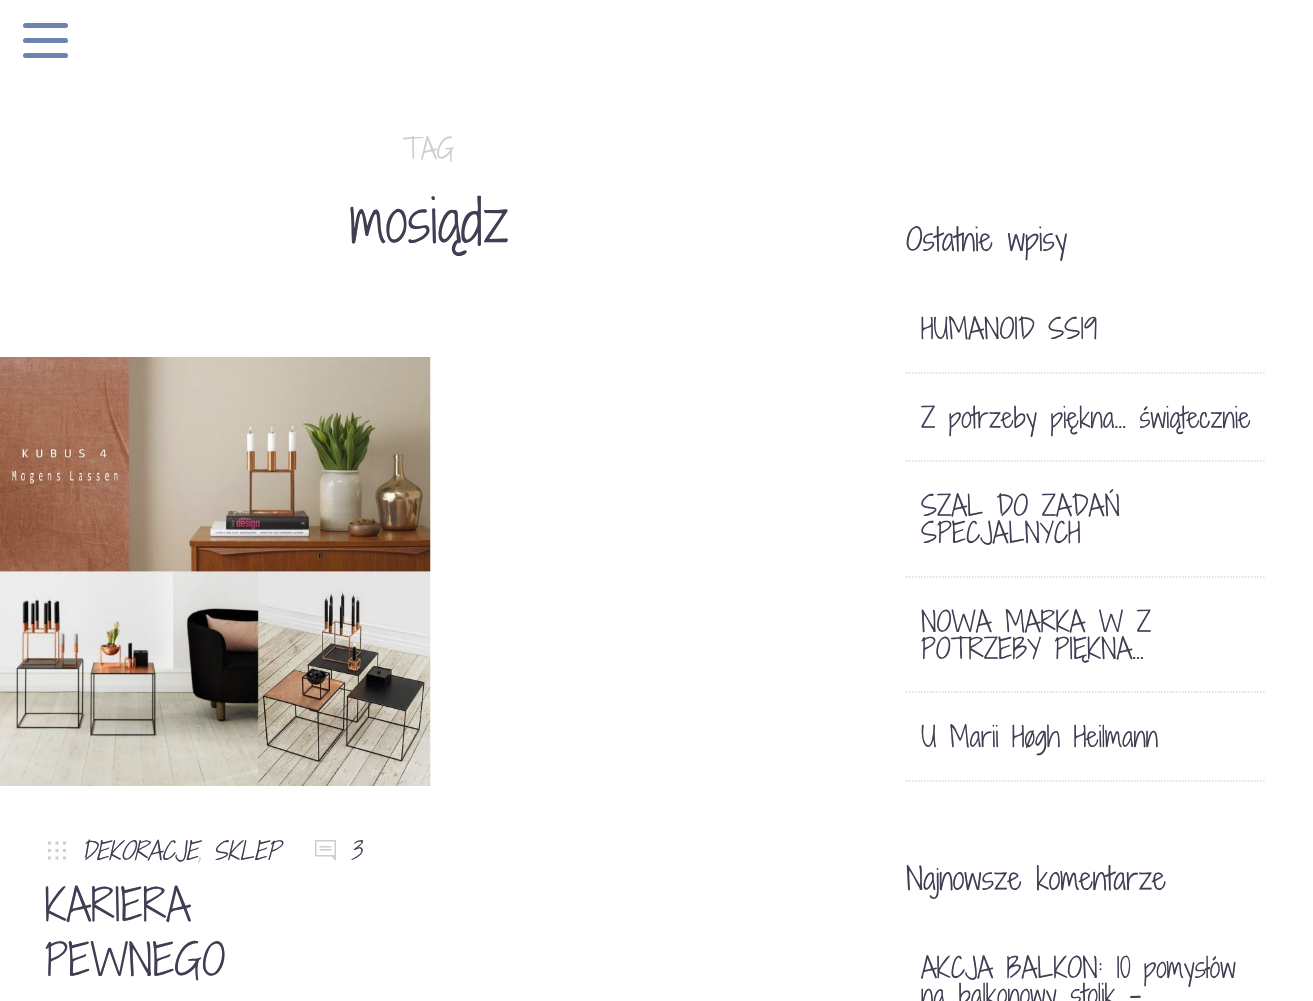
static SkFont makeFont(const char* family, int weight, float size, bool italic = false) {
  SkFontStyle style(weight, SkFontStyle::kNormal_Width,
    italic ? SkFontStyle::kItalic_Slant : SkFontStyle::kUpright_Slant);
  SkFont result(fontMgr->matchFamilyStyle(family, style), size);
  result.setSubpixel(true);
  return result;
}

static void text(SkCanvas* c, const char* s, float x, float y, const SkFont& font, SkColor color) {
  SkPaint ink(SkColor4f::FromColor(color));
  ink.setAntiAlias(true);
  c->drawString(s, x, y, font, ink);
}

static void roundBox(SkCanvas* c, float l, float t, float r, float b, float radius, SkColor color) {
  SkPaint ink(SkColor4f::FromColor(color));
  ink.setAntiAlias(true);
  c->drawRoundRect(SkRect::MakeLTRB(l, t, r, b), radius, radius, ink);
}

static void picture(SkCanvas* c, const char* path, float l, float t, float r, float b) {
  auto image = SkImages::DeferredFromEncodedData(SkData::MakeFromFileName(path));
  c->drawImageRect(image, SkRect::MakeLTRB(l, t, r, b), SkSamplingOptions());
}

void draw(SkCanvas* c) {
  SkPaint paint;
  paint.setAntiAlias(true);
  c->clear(0xffffffff);
  roundBox(c, 23, 38, 68, 43, 2.5f, 0xff6c83b1);
  roundBox(c, 23, 23, 68, 28, 2.5f, 0xff6c83b1);
  roundBox(c, 23, 53, 68, 58, 2.5f, 0xff6c83b1);
  SkFont face1 = makeFont("Shadows Into Light Two", 300, 27);
  text(c, "TAG", 403, 159, face1, 0xffcecece);
  SkFont face2 = makeFont("Shadows Into Light Two", 300, 57);
  text(c, "mosiądz", 350, 243, face2, 0xff3f3f53);
  picture(c, "img_01.png", 0, 357, 431, 786);
  picture(c, "img_02.png", 48, 841, 66, 860);
  SkFont face3 = makeFont("Shadows Into Light Two", 300, 24, true);
  text(c, "DEKORACJE", 81, 860, face3, 0xff3f3f53);
  text(c, "SKLEP", 213, 860, face3, 0xff3f3f53);
  text(c, ",", 198, 860, face3, 0xffcecece);
  picture(c, "img_03.png", 315, 840, 336, 861);
  text(c, "3", 350, 860, face3, 0xff3f3f53);
  SkFont face4 = makeFont("Shadows Into Light Two", 300, 42);
  text(c, "KARIERA", 45, 921, face4, 0xff3f3f53);
  text(c, "PEWNEGO", 45, 976, face4, 0xff3f3f53);
  SkFont face5 = makeFont("Shadows Into Light Two", 300, 30);
  text(c, "Ostatnie wpisy", 906, 251, face5, 0xff3f3f53);
  paint.setStyle(SkPaint::kStroke_Style);
  paint.setStrokeWidth(1.5f);
  paint.setColor(0xffd9d9dd);
  paint.setPathEffect(SkDashPathEffect::Make({{1.5f, 1.5f}}, 0));
  c->drawPath(SkPathBuilder().moveTo(906, 373).lineTo(1266, 373).detach(), paint);
  paint.setPathEffect(nullptr);
  text(c, "HUMANOID SS19", 921, 339, face1, 0xff3f3f53);
  paint.setPathEffect(SkDashPathEffect::Make({{1.5f, 1.5f}}, 0));
  c->drawPath(SkPathBuilder().moveTo(906, 461).lineTo(1266, 461).detach(), paint);
  paint.setPathEffect(nullptr);
  text(c, "Z potrzeby piękna… świątecznie", 921, 428, face1, 0xff3f3f53);
  paint.setPathEffect(SkDashPathEffect::Make({{1.5f, 1.5f}}, 0));
  c->drawPath(SkPathBuilder().moveTo(906, 577).lineTo(1266, 577).detach(), paint);
  paint.setPathEffect(nullptr);
  text(c, "SZAL DO ZADAŃ", 921, 516, face1, 0xff3f3f53);
  text(c, "SPECJALNYCH", 921, 543, face1, 0xff3f3f53);
  paint.setPathEffect(SkDashPathEffect::Make({{1.5f, 1.5f}}, 0));
  c->drawPath(SkPathBuilder().moveTo(906, 692).lineTo(1266, 692).detach(), paint);
  paint.setPathEffect(nullptr);
  text(c, "NOWA MARKA W Z", 921, 632, face1, 0xff3f3f53);
  text(c, "POTRZEBY PIĘKNA…", 921, 659, face1, 0xff3f3f53);
  paint.setPathEffect(SkDashPathEffect::Make({{1.5f, 1.5f}}, 0));
  c->drawPath(SkPathBuilder().moveTo(906, 781).lineTo(1266, 781).detach(), paint);
  paint.setPathEffect(nullptr);
  text(c, "U Marii Høgh Heilmann", 921, 747, face1, 0xff3f3f53);
  text(c, "Najnowsze komentarze", 906, 890, face5, 0xff3f3f53);
  text(c, "AKCJA BALKON: 10 pomysłów", 921, 978, face1, 0xff3f3f53);
  text(c, "na balkonowy stolik -", 921, 1005, face1, 0xff3f3f53);
}
